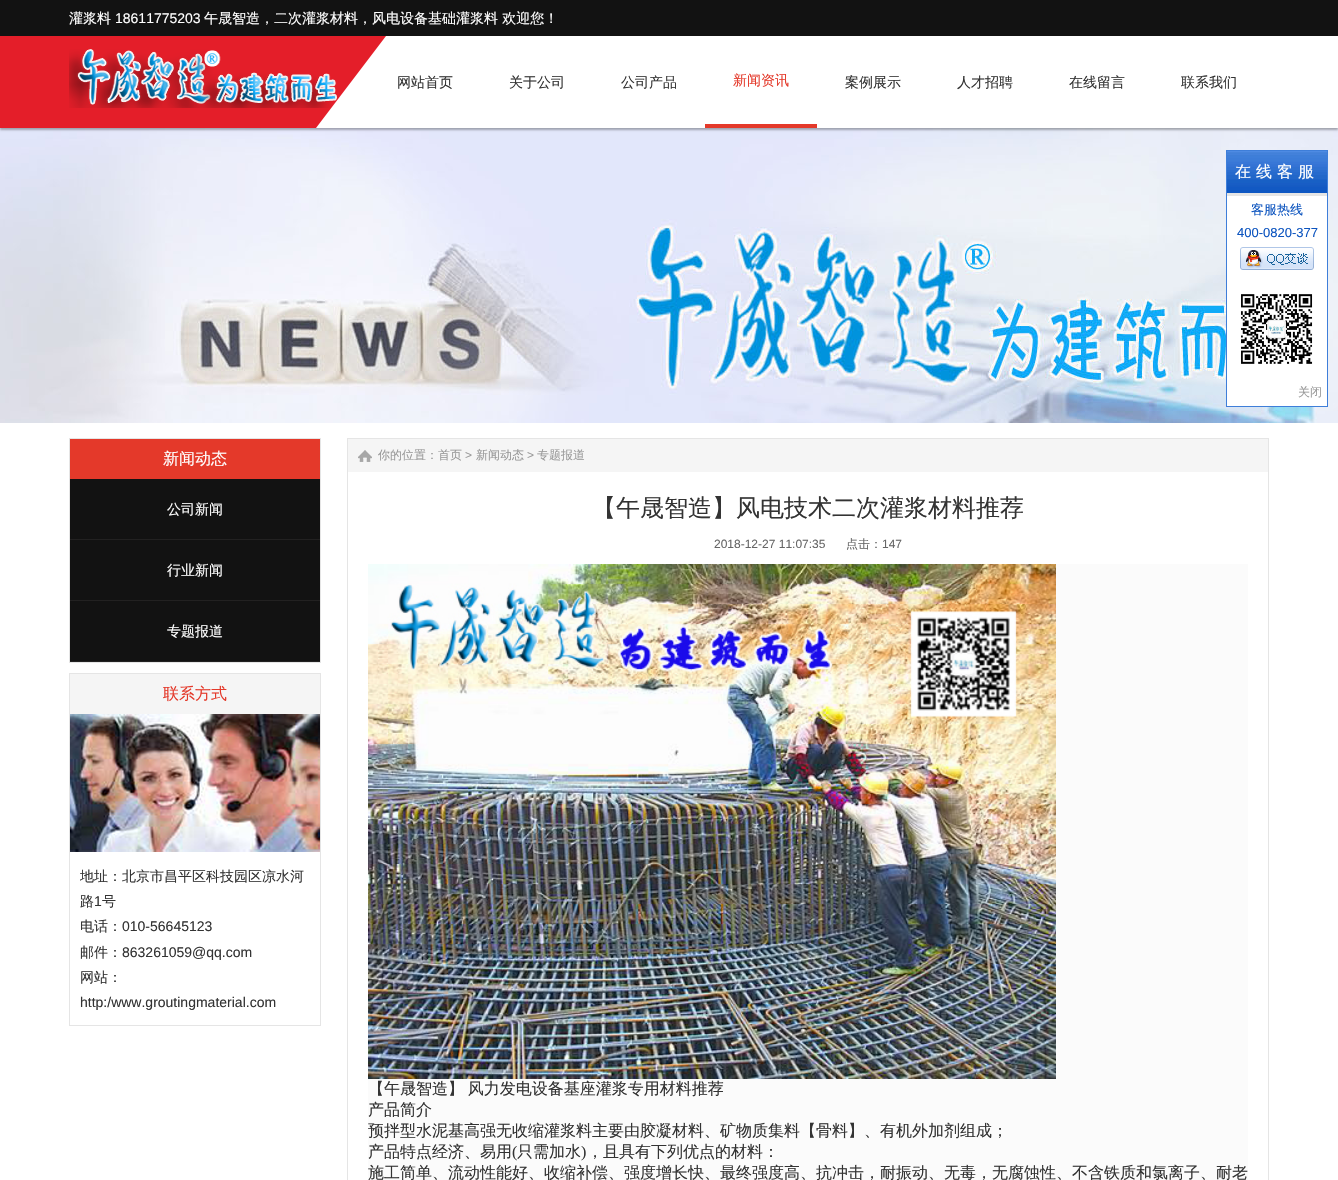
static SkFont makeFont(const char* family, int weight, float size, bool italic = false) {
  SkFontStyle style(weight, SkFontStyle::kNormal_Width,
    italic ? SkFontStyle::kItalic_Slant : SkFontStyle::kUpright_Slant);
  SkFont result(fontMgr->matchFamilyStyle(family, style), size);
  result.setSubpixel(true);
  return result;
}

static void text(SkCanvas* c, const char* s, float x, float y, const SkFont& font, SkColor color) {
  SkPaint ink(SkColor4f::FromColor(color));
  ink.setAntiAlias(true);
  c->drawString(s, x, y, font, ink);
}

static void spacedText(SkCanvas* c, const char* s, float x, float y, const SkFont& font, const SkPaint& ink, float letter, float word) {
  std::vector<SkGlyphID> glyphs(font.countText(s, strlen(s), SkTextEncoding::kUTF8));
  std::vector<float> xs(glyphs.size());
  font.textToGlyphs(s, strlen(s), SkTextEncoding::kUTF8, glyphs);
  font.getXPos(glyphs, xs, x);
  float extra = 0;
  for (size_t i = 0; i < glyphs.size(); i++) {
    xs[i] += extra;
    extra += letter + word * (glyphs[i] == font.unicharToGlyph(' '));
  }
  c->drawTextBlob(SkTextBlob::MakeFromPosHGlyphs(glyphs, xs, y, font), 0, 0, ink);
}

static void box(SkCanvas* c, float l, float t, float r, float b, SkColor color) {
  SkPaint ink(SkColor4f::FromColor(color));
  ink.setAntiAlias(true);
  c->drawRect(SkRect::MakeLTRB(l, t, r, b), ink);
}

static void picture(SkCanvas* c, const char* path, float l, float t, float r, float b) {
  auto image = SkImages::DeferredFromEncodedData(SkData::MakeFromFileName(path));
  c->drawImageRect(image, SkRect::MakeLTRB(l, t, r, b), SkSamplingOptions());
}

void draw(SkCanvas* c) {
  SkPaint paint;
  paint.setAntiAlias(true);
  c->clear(0xffffffff);
  box(c, 0, 0, 1338, 36, 0xff121212);
  SkFont face1 = makeFont("WenQuanYi Zen Hei", 500, 14);
  text(c, "灌浆料", 69, 23, face1, 0xffffffff);
  SkFont face2 = makeFont("Liberation Sans", 400, 14);
  text(c, "18611775203", 115, 23, face2, 0xffffffff);
  text(c, "午晟智造，二次灌浆材料，风电设备基础灌浆料 欢迎您！", 204, 23, face1, 0xffffffff);
  picture(c, "img_06.png", 0, 128, 1338, 423);
  paint.setColor(0x4d000000);
  paint.setMaskFilter(SkMaskFilter::MakeBlur(kNormal_SkBlurStyle, 1));
  c->drawRect(SkRect::MakeLTRB(0, 38, 1338, 130), paint);
  paint.setMaskFilter(nullptr);
  box(c, 316, 36, 1338, 128, 0xffffffff);
  picture(c, "img_01.png", 0, 36, 386, 128);
  picture(c, "img_02.png", 69, 49, 337, 108);
  text(c, "网站首页", 397, 87, face1, 0xff333333);
  text(c, "关于公司", 509, 87, face1, 0xff333333);
  text(c, "公司产品", 621, 87, face1, 0xff333333);
  box(c, 705, 124, 817, 128, 0xffe4392a);
  text(c, "新闻资讯", 733, 85, face1, 0xffe4392a);
  text(c, "案例展示", 845, 87, face1, 0xff333333);
  text(c, "人才招聘", 957, 87, face1, 0xff333333);
  text(c, "在线留言", 1069, 87, face1, 0xff333333);
  text(c, "联系我们", 1181, 87, face1, 0xff333333);
  box(c, 1227, 196, 1327, 406, 0xffffffff);
  paint.setStyle(SkPaint::kStroke_Style);
  paint.setStrokeWidth(1);
  paint.setColor(0xff3e7ed9);
  c->drawRect(SkRect::MakeLTRB(1226.5f, 150.5f, 1327.5f, 406.5f), paint);
  picture(c, "img_03.png", 1227, 151, 1327, 193);
  box(c, 1227, 193, 1327, 196, 0xffe5e5e5);
  SkFont face3 = makeFont("WenQuanYi Zen Hei", 500, 16);
  paint.setStyle(SkPaint::kFill_Style);
  paint.setColor(0xffffffff);
  spacedText(c, "在线客服", 1235, 177, face3, paint, 5, 0);
  SkFont face4 = makeFont("WenQuanYi Zen Hei", 500, 13);
  text(c, "客服热线", 1251, 214, face4, 0xff0c54bf);
  SkFont face5 = makeFont("Liberation Sans", 400, 13);
  text(c, "400-0820-377", 1237, 237, face5, 0xff0c54bf);
  picture(c, "img_04.png", 1240, 247, 1314, 270);
  picture(c, "img_05.png", 1241, 294, 1313, 364);
  SkFont face6 = makeFont("WenQuanYi Zen Hei", 500, 12);
  text(c, "关闭", 1298, 396, face6, 0xff999999);
  paint.setStyle(SkPaint::kStroke_Style);
  paint.setColor(0xffe5e5e5);
  c->drawRect(SkRect::MakeLTRB(69.5f, 438.5f, 320.5f, 662.5f), paint);
  box(c, 70, 439, 320, 479, 0xffe4392a);
  text(c, "新闻动态", 163, 464, face3, 0xffffffff);
  box(c, 70, 479, 320, 539, 0xff121212);
  box(c, 70, 539, 320, 540, 0xff222121);
  text(c, "公司新闻", 167, 514, face1, 0xffffffff);
  box(c, 70, 540, 320, 600, 0xff121212);
  box(c, 70, 600, 320, 601, 0xff222121);
  text(c, "行业新闻", 167, 575, face1, 0xffffffff);
  box(c, 70, 601, 320, 661, 0xff121212);
  box(c, 70, 661, 320, 662, 0xff222121);
  text(c, "专题报道", 167, 636, face1, 0xffffffff);
  c->drawRect(SkRect::MakeLTRB(69.5f, 673.5f, 320.5f, 1025.5f), paint);
  box(c, 70, 674, 320, 714, 0xfff5f5f5);
  text(c, "联系方式", 163, 699, face3, 0xffe4392a);
  picture(c, "img_07.png", 70, 714, 320, 852);
  text(c, "地址：北京市昌平区科技园区凉水河", 80, 881, face1, 0xff333333);
  text(c, "路", 80, 906, face1, 0xff333333);
  text(c, "1", 94, 906, face2, 0xff333333);
  text(c, "号", 102, 906, face1, 0xff333333);
  text(c, "电话：", 80, 931, face1, 0xff333333);
  text(c, "010-56645123", 122, 931, face2, 0xff333333);
  text(c, "邮件：", 80, 957, face1, 0xff333333);
  text(c, "863261059@qq.com", 122, 957, face2, 0xff333333);
  text(c, "网站：", 80, 982, face1, 0xff333333);
  text(c, "http:/www.groutingmaterial.com", 80, 1007, face2, 0xff333333);
  c->drawRect(SkRect::MakeLTRB(347.5f, 438.5f, 1268.5f, 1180.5f), paint);
  box(c, 348, 439, 1268, 472, 0xfff5f5f5);
  picture(c, "img_08.png", 358, 450, 372, 462);
  text(c, "你的位置：首页", 378, 459, face6, 0xff999999);
  SkFont face7 = makeFont("Liberation Sans", 400, 12);
  text(c, ">", 465, 459, face7, 0xff999999);
  text(c, "新闻动态", 476, 459, face6, 0xff999999);
  text(c, ">", 527, 459, face7, 0xff999999);
  text(c, "专题报道", 537, 459, face6, 0xff999999);
  SkFont face8 = makeFont("WenQuanYi Zen Hei", 500, 24);
  text(c, "【午晟智造】风电技术二次灌浆材料推荐", 592, 516, face8, 0xff333333);
  text(c, "2018-12-27 11:07:35", 714, 548, face7, 0xff666666);
  text(c, "点击：", 846, 548, face6, 0xff666666);
  text(c, "147", 882, 548, face7, 0xff666666);
  box(c, 368, 564, 1248, 1180, 0xfffbfbfb);
  picture(c, "img_09.png", 368, 564, 1056, 1079);
  paint.setStyle(SkPaint::kFill_Style);
  paint.setColor(0xff333333);
  spacedText(c, "【午晟智造】 风力发电设备基座灌浆专用材料推荐", 368, 1094, face3, paint, 0, -1);
  text(c, "产品简介", 368, 1115, face3, 0xff333333);
  text(c, "预拌型水泥基高强无收缩灌浆料主要由胶凝材料、矿物质集料【骨料】、有机外加剂组成；", 368, 1136, face3, 0xff333333);
  text(c, "产品特点经济、易用", 368, 1157, face3, 0xff333333);
  SkFont face9 = makeFont("Liberation Serif", 400, 16);
  text(c, "(", 512, 1157, face9, 0xff333333);
  text(c, "只需加水", 517, 1157, face3, 0xff333333);
  text(c, ")", 581, 1157, face9, 0xff333333);
  text(c, "，且具有下列优点的材料：", 587, 1157, face3, 0xff333333);
  text(c, "施工简单、流动性能好、收缩补偿、强度增长快、最终强度高、抗冲击，耐振动、无毒，无腐蚀性、不含铁质和氯离子、耐老", 368, 1178, face3, 0xff333333);
}
